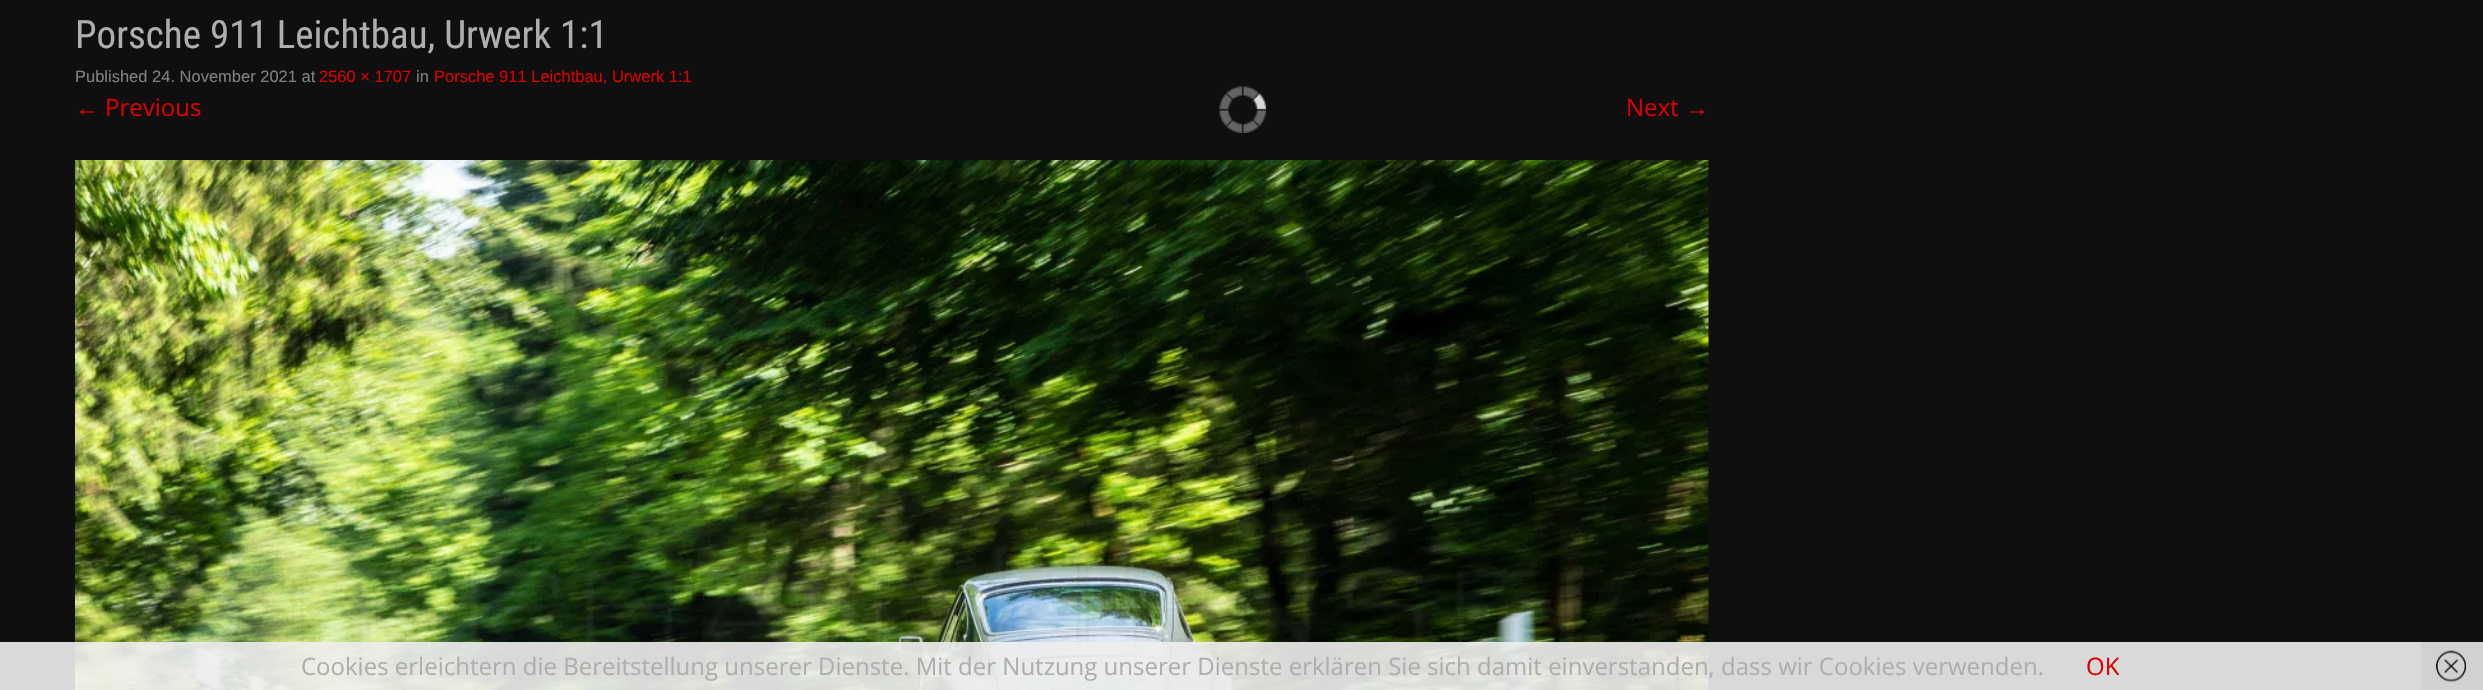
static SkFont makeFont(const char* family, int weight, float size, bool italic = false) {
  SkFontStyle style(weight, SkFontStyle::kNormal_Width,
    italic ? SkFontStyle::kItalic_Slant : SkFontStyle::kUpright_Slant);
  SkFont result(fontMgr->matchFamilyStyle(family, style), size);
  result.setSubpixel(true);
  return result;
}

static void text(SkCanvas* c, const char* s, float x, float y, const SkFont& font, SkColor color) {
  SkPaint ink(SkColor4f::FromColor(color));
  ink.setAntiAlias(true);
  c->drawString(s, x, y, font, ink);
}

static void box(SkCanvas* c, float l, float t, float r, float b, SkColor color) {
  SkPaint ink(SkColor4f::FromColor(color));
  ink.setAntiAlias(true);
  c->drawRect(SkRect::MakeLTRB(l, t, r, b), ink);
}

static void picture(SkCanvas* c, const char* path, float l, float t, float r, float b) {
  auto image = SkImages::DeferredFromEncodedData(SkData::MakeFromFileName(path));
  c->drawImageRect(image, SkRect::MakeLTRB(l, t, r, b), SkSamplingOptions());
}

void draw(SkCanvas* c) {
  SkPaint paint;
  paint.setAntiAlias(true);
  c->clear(0xff0f0f0f);
  SkFont face1 = makeFont("Roboto Condensed", 400, 39);
  text(c, "Porsche 911 Leichtbau, Urwerk 1:1", 75, 48, face1, 0xffaeaeae);
  SkFont face2 = makeFont("Liberation Sans", 400, 16.5f);
  text(c, "Published 24. November 2021 at", 75, 82, face2, 0xff808080);
  text(c, "2560 × 1707", 319, 82, face2, 0xffdd0000);
  text(c, "in", 416, 82, face2, 0xff808080);
  text(c, "Porsche 911 Leichtbau, Urwerk 1:1", 434, 82, face2, 0xffdd0000);
  SkFont face3 = makeFont("Liberation Sans", 400, 24);
  text(c, "←", 75, 116, face3, 0xffdd0000);
  SkFont face4 = makeFont("Open Sans", 400, 24);
  text(c, "Previous", 105, 116, face4, 0xffdd0000);
  text(c, "Next", 1626, 116, face4, 0xffdd0000);
  text(c, "→", 1685, 116, face3, 0xffdd0000);
  picture(c, "img_01.png", 75, 160, 1709, 690);
  picture(c, "img_02.png", 1219, 86, 1266, 133);
  box(c, 0, 642, 2421, 690, 0xe6eeeeee);
  text(c, "Cookies erleichtern die Bereitstellung unserer Dienste. Mit der Nutzung unserer Dienste erklären Sie sich damit einverstanden, dass wir Cookies verwenden.", 301, 675, face4, 0xffaeaeae);
  text(c, "OK", 2086, 675, face4, 0xffdd0000);
  box(c, 2421, 642, 2483, 690, 0xffd1d1d1);
  picture(c, "img_03.png", 2436, 650, 2466, 682);
}
